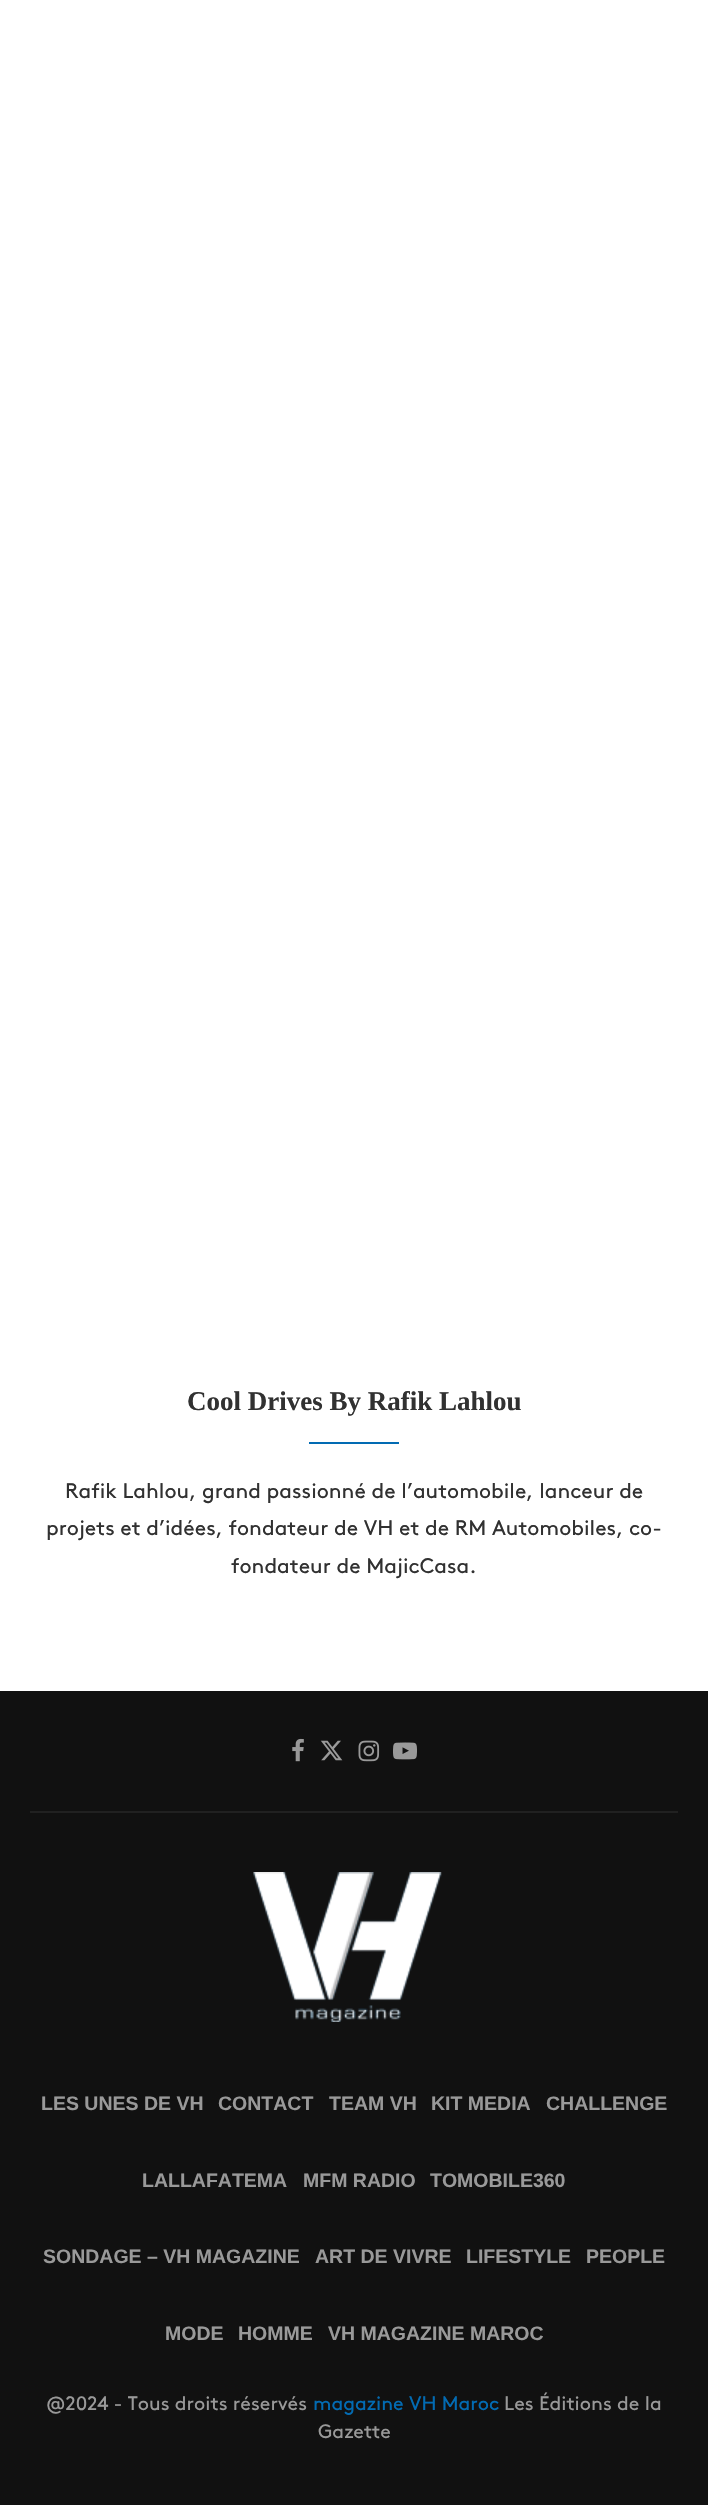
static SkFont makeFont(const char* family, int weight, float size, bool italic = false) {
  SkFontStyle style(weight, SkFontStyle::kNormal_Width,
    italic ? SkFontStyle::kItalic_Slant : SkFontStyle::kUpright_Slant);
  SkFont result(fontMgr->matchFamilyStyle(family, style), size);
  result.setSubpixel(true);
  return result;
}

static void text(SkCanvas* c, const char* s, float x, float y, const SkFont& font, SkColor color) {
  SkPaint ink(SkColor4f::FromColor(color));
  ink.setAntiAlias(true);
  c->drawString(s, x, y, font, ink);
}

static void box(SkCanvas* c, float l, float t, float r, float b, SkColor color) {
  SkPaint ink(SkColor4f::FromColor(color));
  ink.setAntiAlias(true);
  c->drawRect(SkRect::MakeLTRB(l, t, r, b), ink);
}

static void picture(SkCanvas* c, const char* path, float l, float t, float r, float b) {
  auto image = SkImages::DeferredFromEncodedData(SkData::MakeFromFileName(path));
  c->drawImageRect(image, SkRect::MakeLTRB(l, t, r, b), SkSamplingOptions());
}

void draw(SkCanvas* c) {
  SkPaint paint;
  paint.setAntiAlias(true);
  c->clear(0xffffffff);
  SkFont face1 = makeFont("Liberation Serif", 700, 27);
  text(c, "Cool Drives By Rafik Lahlou", 187, 1410, face1, 0xff313131);
  box(c, 309, 1442, 399, 1444, 0xff026bb3);
  SkFont face2 = makeFont("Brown", 400, 21);
  text(c, "Rafik Lahlou, grand passionné de l’automobile, lanceur de", 65, 1498, face2, 0xff313131);
  text(c, "projets et d’idées, fondateur de VH et de RM Automobiles, co-", 46, 1535, face2, 0xff313131);
  text(c, "fondateur de MajicCasa.", 231, 1573, face2, 0xff313131);
  box(c, 0, 1691, 708, 2505, 0xff111111);
  box(c, 30, 1811, 678, 1813, 0xff212121);
  picture(c, "img_01.png", 292, 1738, 304, 1762);
  picture(c, "img_02.png", 320, 1740, 343, 1761);
  picture(c, "img_03.png", 358, 1740, 380, 1762);
  picture(c, "img_04.png", 393, 1742, 417, 1760);
  picture(c, "img_05.png", 253, 1872, 442, 2022);
  SkFont face3 = makeFont("Liberation Sans", 700, 19.5f);
  text(c, "LES UNES DE VH", 41, 2110, face3, 0xff999999);
  text(c, "CONTACT", 218, 2110, face3, 0xff999999);
  text(c, "TEAM VH", 329, 2110, face3, 0xff999999);
  text(c, "KIT MEDIA", 431, 2110, face3, 0xff999999);
  text(c, "CHALLENGE", 546, 2110, face3, 0xff999999);
  text(c, "LALLAFATEMA", 142, 2187, face3, 0xff999999);
  text(c, "MFM RADIO", 303, 2187, face3, 0xff999999);
  text(c, "TOMOBILE360", 430, 2187, face3, 0xff999999);
  text(c, "SONDAGE – VH MAGAZINE", 43, 2263, face3, 0xff999999);
  text(c, "ART DE VIVRE", 315, 2263, face3, 0xff999999);
  text(c, "LIFESTYLE", 466, 2263, face3, 0xff999999);
  text(c, "PEOPLE", 586, 2263, face3, 0xff999999);
  text(c, "MODE", 165, 2340, face3, 0xff999999);
  text(c, "HOMME", 238, 2340, face3, 0xff999999);
  text(c, "VH MAGAZINE MAROC", 328, 2340, face3, 0xff999999);
  SkFont face4 = makeFont("Brown", 400, 19.5f);
  text(c, "@2024 - Tous droits réservés", 46, 2410, face4, 0xff999999);
  text(c, "magazine VH Maroc", 313, 2410, face4, 0xff026bb3);
  text(c, "Les Éditions de la", 504, 2410, face4, 0xff999999);
  text(c, "Gazette", 318, 2438, face4, 0xff999999);
}
